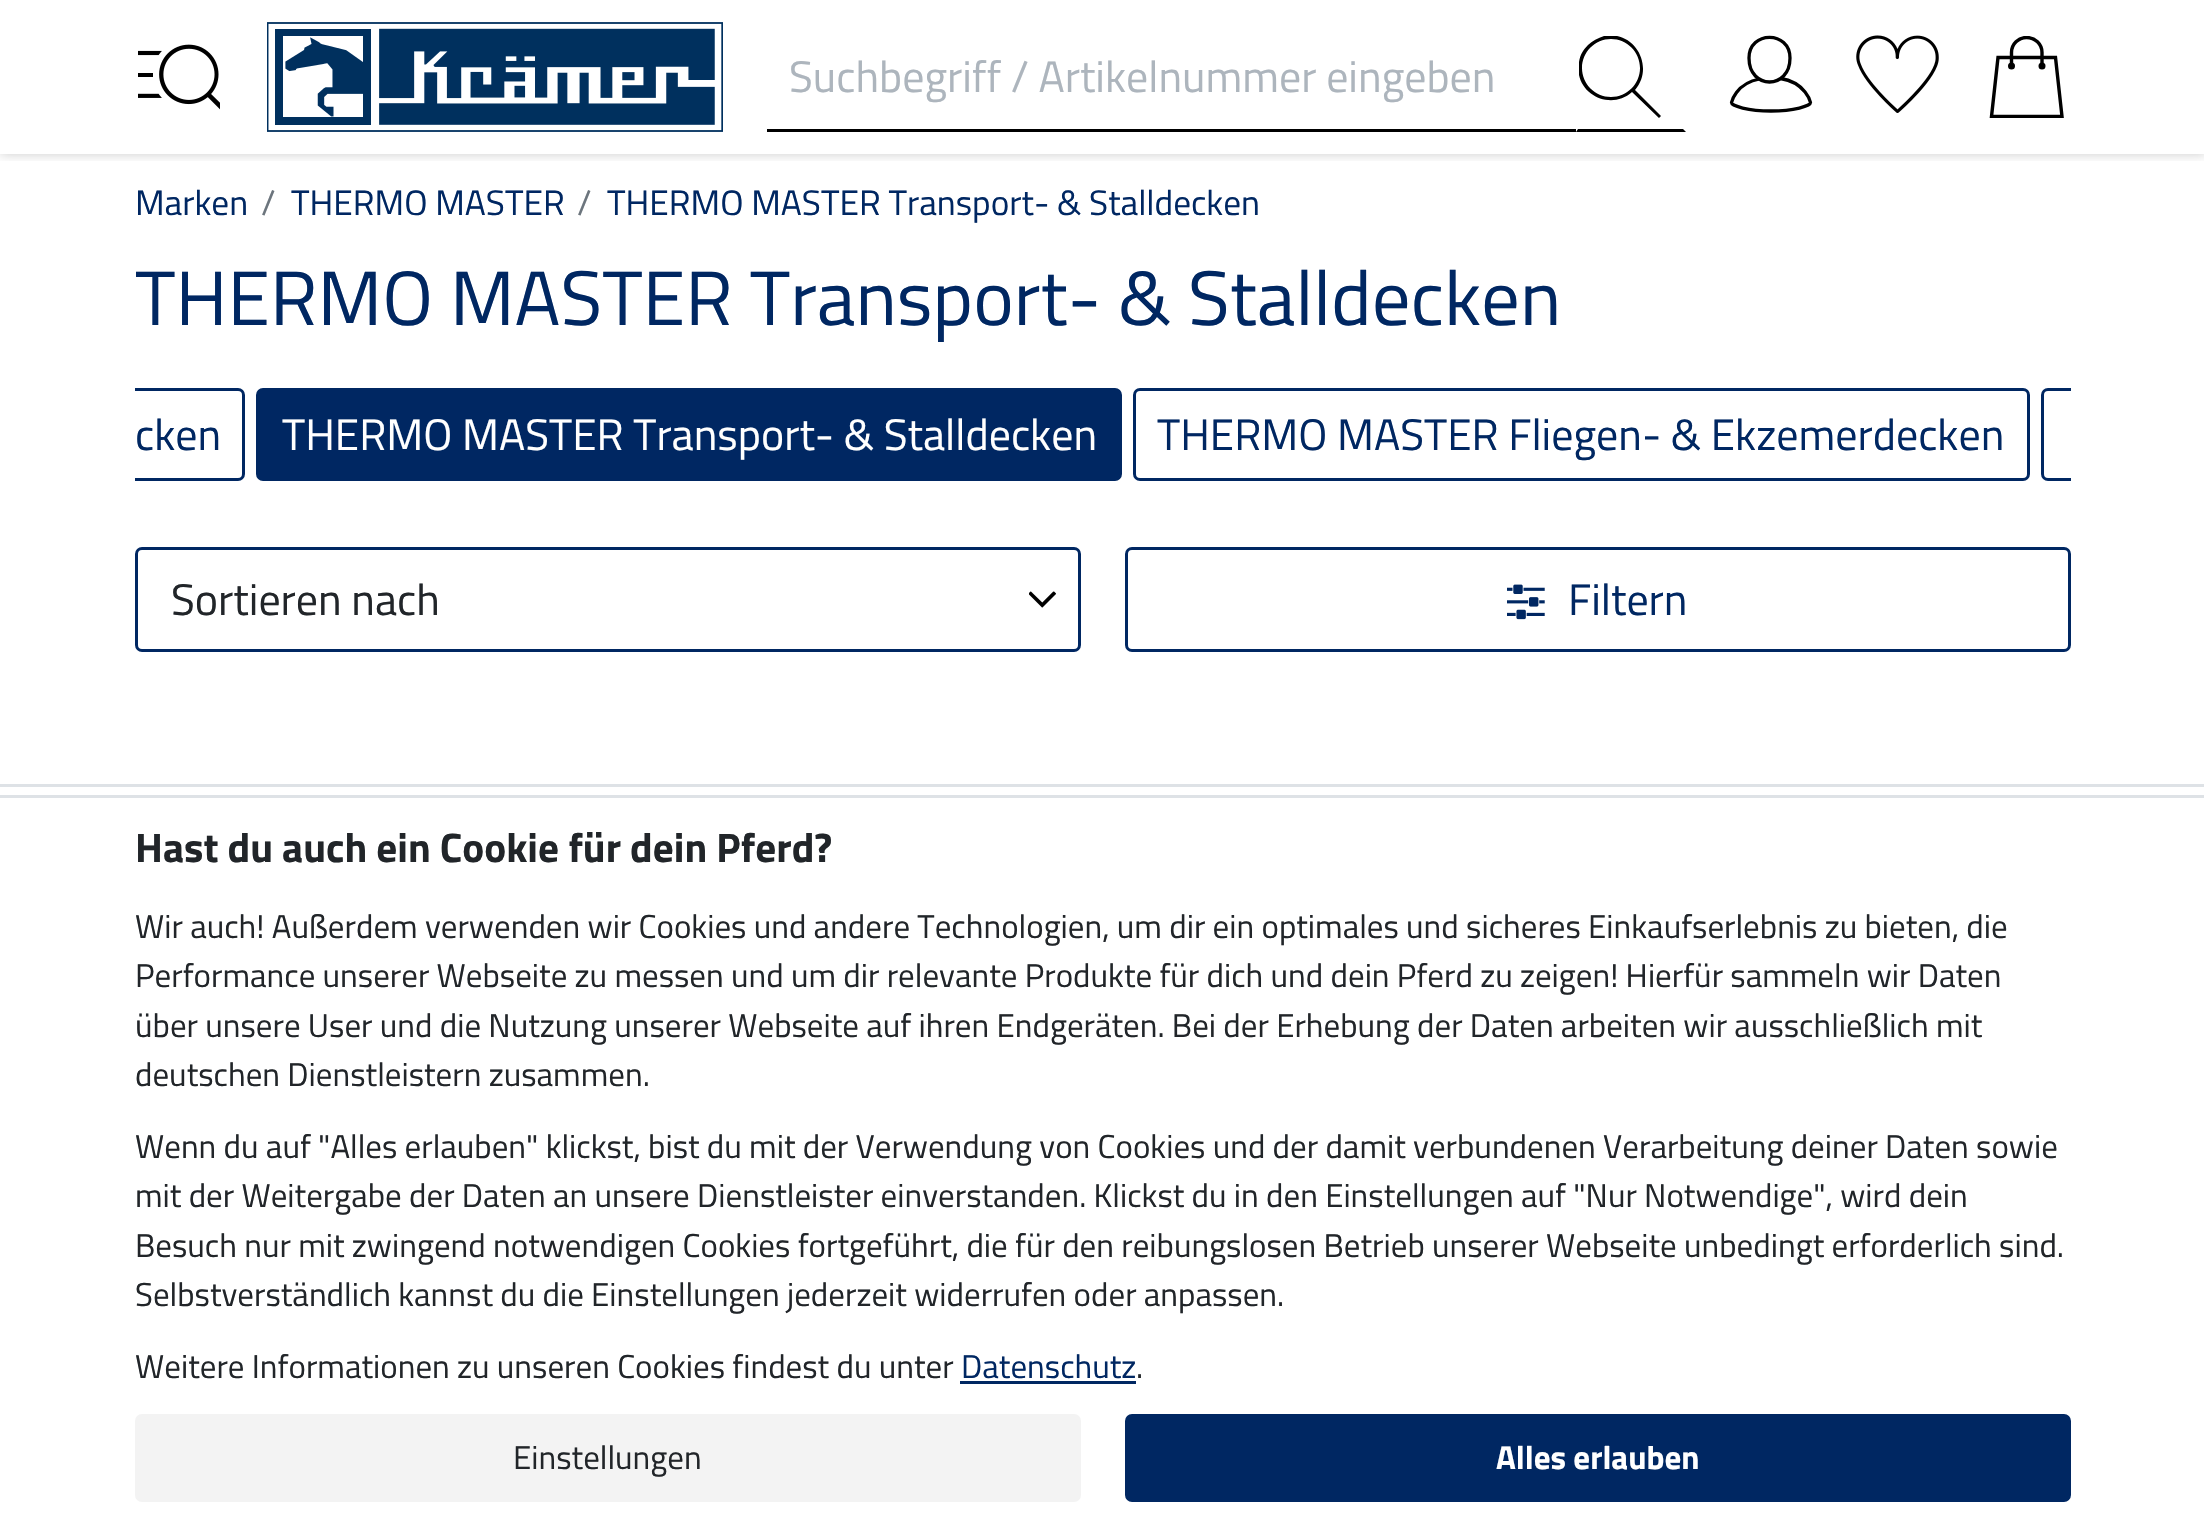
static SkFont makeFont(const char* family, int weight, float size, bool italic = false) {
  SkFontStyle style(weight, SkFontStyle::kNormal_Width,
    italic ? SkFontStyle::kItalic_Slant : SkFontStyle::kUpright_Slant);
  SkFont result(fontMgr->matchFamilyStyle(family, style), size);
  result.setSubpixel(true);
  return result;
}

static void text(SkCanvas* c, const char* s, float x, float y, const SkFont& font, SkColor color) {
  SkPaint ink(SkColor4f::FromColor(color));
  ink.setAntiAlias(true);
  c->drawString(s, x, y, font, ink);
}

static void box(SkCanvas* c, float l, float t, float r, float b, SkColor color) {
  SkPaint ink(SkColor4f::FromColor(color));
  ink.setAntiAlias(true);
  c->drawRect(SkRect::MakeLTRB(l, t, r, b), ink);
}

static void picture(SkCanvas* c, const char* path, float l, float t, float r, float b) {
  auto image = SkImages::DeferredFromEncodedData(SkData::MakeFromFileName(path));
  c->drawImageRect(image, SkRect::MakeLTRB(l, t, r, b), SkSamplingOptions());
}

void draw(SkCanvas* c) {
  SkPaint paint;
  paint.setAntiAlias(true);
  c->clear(0xffffffff);
  c->save();
  c->clipRect(SkRect::MakeLTRB(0, 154, 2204, 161));
  paint.setColor(0x33000000);
  paint.setMaskFilter(SkMaskFilter::MakeBlur(kNormal_SkBlurStyle, 5.5f));
  c->drawRect(SkRect::MakeLTRB(0, 0, 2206, 154), paint);
  paint.setMaskFilter(nullptr);
  c->restore();
  picture(c, "img_01.png", 138, 44, 220, 110);
  picture(c, "img_02.png", 267, 22, 723, 132);
  box(c, 767, 129, 1579, 132, 0xff000000);
  SkFont face1 = makeFont("Titillium Web", 400, 44);
  text(c, "Suchbegriff / Artikelnummer eingeben", 789, 92, face1, 0xffadb5bd);
  box(c, 1576, 129, 1579, 132, 0xffffffff);
  paint.setColor(0xff000000);
  c->drawPath(SkPathBuilder().moveTo(1686, 132).lineTo(1576, 132).lineTo(1578, 129).lineTo(1683, 129).close().detach(), paint);
  c->save();
  c->clipRect(SkRect::MakeLTRB(1579, 36, 1661, 118));
  c->drawPath(SkPathBuilder(SkPathFillType::kEvenOdd).moveTo(1640, 68).cubicTo(1640, 52, 1627, 39, 1611, 39).cubicTo(1595, 39, 1582, 52, 1582, 68).cubicTo(1582, 84, 1595, 97, 1611, 97).cubicTo(1627, 97, 1640, 84, 1640, 68).close().moveTo(1661, 116).lineTo(1659, 118).lineTo(1632, 92).cubicTo(1610, 112, 1573, 93, 1579, 62).cubicTo(1580, 55, 1583, 50, 1588, 45).cubicTo(1592, 41, 1598, 38, 1604, 36).cubicTo(1635, 30, 1655, 67, 1635, 90).close().detach(), paint);
  c->restore();
  paint.setStyle(SkPaint::kStroke_Style);
  paint.setStrokeWidth(3.3f);
  paint.setStrokeJoin(SkPaint::kRound_Join);
  c->drawPath(SkPathBuilder().moveTo(1790, 58).cubicTo(1790, 90, 1749, 90, 1749, 58).cubicTo(1749, 30.5f, 1790, 30.5f, 1790, 58).close().detach(), paint);
  c->drawPath(SkPathBuilder().moveTo(1759.5f, 79).cubicTo(1735.5f, 83.5f, 1731.5f, 102.5f, 1731.5f, 102.5f).cubicTo(1731.5f, 106, 1748, 111, 1771, 111).cubicTo(1794, 111, 1810.5f, 106, 1810.5f, 102.5f).cubicTo(1810.5f, 102.5f, 1806, 82.5f, 1780.5f, 78.5f).detach(), paint);
  picture(c, "img_03.png", 1856, 35, 1939, 113);
  c->save();
  c->clipRect(SkRect::MakeLTRB(1986, 36, 2068, 118));
  paint.setStrokeWidth(3.4f);
  paint.setStrokeCap(SkPaint::kRound_Cap);
  paint.setStrokeJoin(SkPaint::kMiter_Join);
  c->drawPath(SkPathBuilder().moveTo(1998, 57.5f).lineTo(1991.5f, 116.5f).lineTo(2062, 116.5f).lineTo(2055.5f, 57.5f).close().detach(), paint);
  c->drawPath(SkPathBuilder().moveTo(2042, 66).lineTo(2042, 52.5f).cubicTo(2042, 44, 2035, 37.5f, 2026.5f, 37.5f).cubicTo(2018.5f, 37.5f, 2011.5f, 44, 2011.5f, 52.5f).lineTo(2011.5f, 66).detach(), paint);
  c->restore();
  paint.setStyle(SkPaint::kFill_Style);
  c->drawCircle(2011.5f, 66, 3.5f, paint);
  c->drawCircle(2042, 66, 3.5f, paint);
  SkFont face2 = makeFont("Titillium Web", 400, 35.25f);
  text(c, "Marken", 135, 215, face2, 0xff002762);
  text(c, "/", 261, 215, face2, 0xff6c757d);
  text(c, "THERMO MASTER", 291, 215, face2, 0xff002762);
  text(c, "/", 577, 215, face2, 0xff6c757d);
  text(c, "THERMO MASTER Transport- & Stalldecken", 607, 215, face2, 0xff002762);
  SkFont face3 = makeFont("Titillium Web", 400, 77);
  text(c, "THERMO MASTER Transport- & Stalldecken", 135, 325, face3, 0xff002762);
  c->save();
  c->clipRect(SkRect::MakeLTRB(135, 388, 2071, 503));
  paint.setStyle(SkPaint::kStroke_Style);
  paint.setStrokeWidth(3);
  paint.setStrokeCap(SkPaint::kButt_Cap);
  paint.setColor(0xff002762);
  c->drawRoundRect(SkRect::MakeLTRB(-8.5f, 389.5f, 243.5f, 479.5f), 5.5f, 5.5f, paint);
  c->restore();
  text(c, "cken", 135, 450, face1, 0xff002762);
  paint.setStyle(SkPaint::kFill_Style);
  c->drawRoundRect(SkRect::MakeLTRB(257.5f, 389.5f, 1120.5f, 479.5f), 5.5f, 5.5f, paint);
  paint.setStyle(SkPaint::kStroke_Style);
  c->drawRoundRect(SkRect::MakeLTRB(257.5f, 389.5f, 1120.5f, 479.5f), 5.5f, 5.5f, paint);
  text(c, "THERMO MASTER Transport- & Stalldecken", 282, 450, face1, 0xffffffff);
  c->drawRoundRect(SkRect::MakeLTRB(1134.5f, 389.5f, 2028.5f, 479.5f), 5.5f, 5.5f, paint);
  text(c, "THERMO MASTER Fliegen- & Ekzemerdecken", 1157, 450, face1, 0xff002762);
  c->save();
  c->clipRect(SkRect::MakeLTRB(135, 388, 2071, 503));
  c->drawRoundRect(SkRect::MakeLTRB(2042.5f, 389.5f, 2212.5f, 479.5f), 5.5f, 5.5f, paint);
  c->restore();
  picture(c, "img_04.png", 1029, 591, 1056, 608);
  c->drawRoundRect(SkRect::MakeLTRB(136.5f, 548.5f, 1079.5f, 650.5f), 5.5f, 5.5f, paint);
  text(c, "Sortieren nach", 171, 615, face1, 0xff212529);
  c->drawRoundRect(SkRect::MakeLTRB(1126.5f, 548.5f, 2069.5f, 650.5f), 5.5f, 5.5f, paint);
  picture(c, "img_05.png", 1507, 584, 1545, 620);
  text(c, "Filtern", 1568, 615, face1, 0xff002762);
  box(c, 0, 784, 2204, 787, 0xffdee2e6);
  box(c, 0, 795, 2204, 798, 0xffdee2e6);
  SkFont face4 = makeFont("Titillium Web", 700, 41.25f);
  text(c, "Hast du auch ein Cookie für dein Pferd?", 135, 862, face4, 0xff212529);
  SkFont face5 = makeFont("Titillium Web", 400, 33);
  text(c, "Wir auch! Außerdem verwenden wir Cookies und andere Technologien, um dir ein optimales und sicheres Einkaufserlebnis zu bieten, die", 135, 938, face5, 0xff212529);
  text(c, "Performance unserer Webseite zu messen und um dir relevante Produkte für dich und dein Pferd zu zeigen! Hierfür sammeln wir Daten", 135, 987, face5, 0xff212529);
  text(c, "über unsere User und die Nutzung unserer Webseite auf ihren Endgeräten. Bei der Erhebung der Daten arbeiten wir ausschließlich mit", 135, 1037, face5, 0xff212529);
  text(c, "deutschen Dienstleistern zusammen.", 135, 1086, face5, 0xff212529);
  text(c, "Wenn du auf \"Alles erlauben\" klickst, bist du mit der Verwendung von Cookies und der damit verbundenen Verarbeitung deiner Daten sowie", 135, 1158, face5, 0xff212529);
  text(c, "mit der Weitergabe der Daten an unsere Dienstleister einverstanden. Klickst du in den Einstellungen auf \"Nur Notwendige\", wird dein", 135, 1207, face5, 0xff212529);
  text(c, "Besuch nur mit zwingend notwendigen Cookies fortgeführt, die für den reibungslosen Betrieb unserer Webseite unbedingt erforderlich sind.", 135, 1257, face5, 0xff212529);
  text(c, "Selbstverständlich kannst du die Einstellungen jederzeit widerrufen oder anpassen.", 135, 1306, face5, 0xff212529);
  text(c, "Weitere Informationen zu unseren Cookies findest du unter", 135, 1378, face5, 0xff212529);
  text(c, "Datenschutz", 961, 1378, face5, 0xff002762);
  box(c, 960, 1381, 1136, 1384, 0xff002762);
  text(c, ".", 1136, 1378, face5, 0xff212529);
  paint.setStyle(SkPaint::kFill_Style);
  paint.setColor(0xfff3f3f3);
  c->drawRoundRect(SkRect::MakeLTRB(136.5f, 1415.5f, 1079.5f, 1500.5f), 5.5f, 5.5f, paint);
  paint.setStyle(SkPaint::kStroke_Style);
  c->drawRoundRect(SkRect::MakeLTRB(136.5f, 1415.5f, 1079.5f, 1500.5f), 5.5f, 5.5f, paint);
  text(c, "Einstellungen", 513, 1469, face5, 0xff212529);
  paint.setStyle(SkPaint::kFill_Style);
  paint.setColor(0xff002762);
  c->drawRoundRect(SkRect::MakeLTRB(1126.5f, 1415.5f, 2069.5f, 1500.5f), 5.5f, 5.5f, paint);
  paint.setStyle(SkPaint::kStroke_Style);
  c->drawRoundRect(SkRect::MakeLTRB(1126.5f, 1415.5f, 2069.5f, 1500.5f), 5.5f, 5.5f, paint);
  SkFont face6 = makeFont("Titillium Web", 700, 33);
  text(c, "Alles erlauben", 1496, 1469, face6, 0xffffffff);
}
